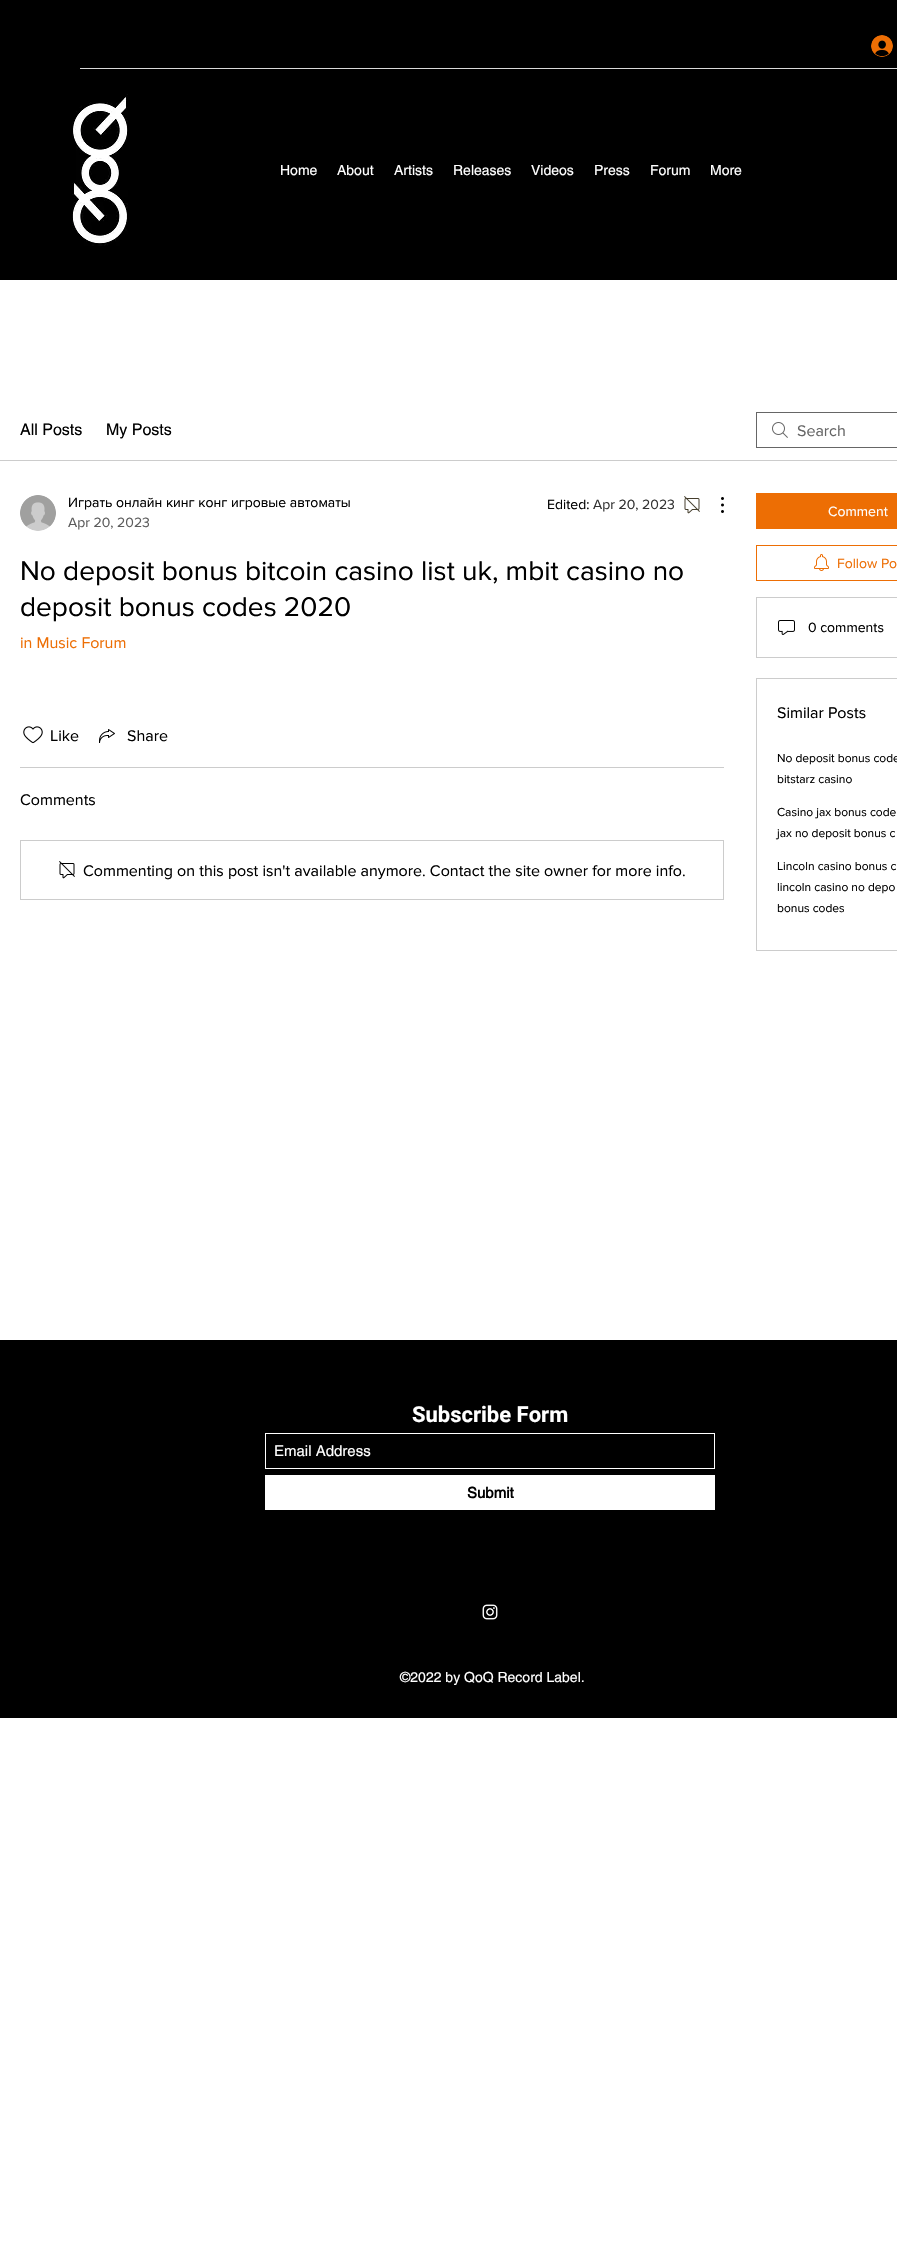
static SkFont makeFont(const char* family, int weight, float size, bool italic = false) {
  SkFontStyle style(weight, SkFontStyle::kNormal_Width,
    italic ? SkFontStyle::kItalic_Slant : SkFontStyle::kUpright_Slant);
  SkFont result(fontMgr->matchFamilyStyle(family, style), size);
  result.setSubpixel(true);
  return result;
}

static void text(SkCanvas* c, const char* s, float x, float y, const SkFont& font, SkColor color) {
  SkPaint ink(SkColor4f::FromColor(color));
  ink.setAntiAlias(true);
  c->drawString(s, x, y, font, ink);
}

static void box(SkCanvas* c, float l, float t, float r, float b, SkColor color) {
  SkPaint ink(SkColor4f::FromColor(color));
  ink.setAntiAlias(true);
  c->drawRect(SkRect::MakeLTRB(l, t, r, b), ink);
}

static void picture(SkCanvas* c, const char* path, float l, float t, float r, float b) {
  auto image = SkImages::DeferredFromEncodedData(SkData::MakeFromFileName(path));
  c->drawImageRect(image, SkRect::MakeLTRB(l, t, r, b), SkSamplingOptions());
}

void draw(SkCanvas* c) {
  SkPaint paint;
  paint.setAntiAlias(true);
  c->clear(0xffffffff);
  box(c, 0, 0, 897, 280, 0xff000000);
  picture(c, "img_01.png", 871, 35, 893, 57);
  box(c, 80, 68, 897, 69, 0xffd9d9d9);
  picture(c, "img_02.png", 72, 94, 128, 246);
  SkFont face1 = makeFont("helvetica", 400, 14);
  text(c, "Home", 280, 175, face1, 0xffffffff);
  text(c, "About", 337, 175, face1, 0xffffffff);
  text(c, "Artists", 394, 175, face1, 0xffffffff);
  text(c, "Releases", 453, 175, face1, 0xffffffff);
  text(c, "Videos", 531, 175, face1, 0xffffffff);
  text(c, "Press", 594, 175, face1, 0xffffffff);
  text(c, "Forum", 650, 175, face1, 0xffffffff);
  text(c, "More", 710, 175, face1, 0xffffffff);
  box(c, 0, 460, 897, 461, 0xffcccccc);
  SkFont face2 = makeFont("helvetica", 400, 16);
  text(c, "All Posts", 20, 435, face2, 0xff000000);
  text(c, "My Posts", 106, 435, face2, 0xff000000);
  picture(c, "img_03.png", 772, 422, 788, 438);
  paint.setStyle(SkPaint::kStroke_Style);
  paint.setStrokeWidth(1);
  paint.setColor(0xff666666);
  c->drawRect(SkRect::MakeLTRB(756.5f, 412.5f, 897.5f, 447.5f), paint);
  SkFont face3 = makeFont("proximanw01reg", 400, 16);
  text(c, "Search", 797, 436, face3, 0xff666666);
  picture(c, "img_04.png", 20, 495, 56, 531);
  SkFont face4 = makeFont("proximanw01reg", 400, 14);
  text(c, "Играть онлайн кинг конг игровые автоматы", 68, 507, face4, 0xff000000);
  text(c, "Apr 20, 2023", 68, 527, face4, 0xff5c5c5c);
  text(c, "Edited:", 547, 509, face4, 0xff000000);
  text(c, "Apr 20, 2023", 593, 509, face4, 0xff333333);
  picture(c, "img_05.png", 684, 496, 700, 514);
  picture(c, "img_06.png", 721, 497, 724, 513);
  SkFont face5 = makeFont("proximanw01reg", 400, 28);
  text(c, "No deposit bonus bitcoin casino list uk, mbit casino no", 20, 580, face5, 0xff000000);
  text(c, "deposit bonus codes 2020", 20, 616, face5, 0xff000000);
  text(c, "in Music Forum", 20, 648, face3, 0xffed6e04);
  picture(c, "img_07.png", 23, 726, 43, 744);
  text(c, "Like", 50, 741, face3, 0xff000000);
  picture(c, "img_08.png", 99, 729, 115, 743);
  text(c, "Share", 127, 741, face3, 0xff000000);
  box(c, 20, 767, 724, 768, 0xffcccccc);
  text(c, "Comments", 20, 805, face3, 0xff000000);
  paint.setColor(0xffcccccc);
  c->drawRect(SkRect::MakeLTRB(20.5f, 840.5f, 723.5f, 899.5f), paint);
  picture(c, "img_09.png", 59, 861, 75, 879);
  text(c, "Commenting on this post isn't available anymore. Contact the site owner for more info.", 83, 876, face3, 0xff000000);
  box(c, 756, 493, 897, 529, 0xffed6e04);
  text(c, "Comment", 828, 516, face4, 0xffffffff);
  paint.setColor(0xffed6e04);
  c->drawRect(SkRect::MakeLTRB(756.5f, 545.5f, 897.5f, 580.5f), paint);
  picture(c, "img_10.png", 814, 554, 829, 571);
  text(c, "Follow Po", 837, 568, face4, 0xffed6e04);
  paint.setColor(0xffcccccc);
  c->drawRect(SkRect::MakeLTRB(756.5f, 597.5f, 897.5f, 657.5f), paint);
  picture(c, "img_11.png", 778, 620, 795, 635);
  text(c, "0 comments", 808, 632, face4, 0xff000000);
  c->drawRect(SkRect::MakeLTRB(756.5f, 678.5f, 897.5f, 950.5f), paint);
  text(c, "Similar Posts", 777, 718, face3, 0xff000000);
  SkFont face6 = makeFont("proximanw01reg", 400, 12);
  text(c, "No deposit bonus code", 777, 762, face6, 0xff000000);
  text(c, "bitstarz casino", 777, 783, face6, 0xff000000);
  text(c, "Casino jax bonus code", 777, 816, face6, 0xff000000);
  text(c, "jax no deposit bonus c", 777, 837, face6, 0xff000000);
  text(c, "Lincoln casino bonus c", 777, 870, face6, 0xff000000);
  text(c, "lincoln casino no depo", 777, 891, face6, 0xff000000);
  text(c, "bonus codes", 777, 912, face6, 0xff000000);
  box(c, 0, 1340, 897, 1718, 0xff000000);
  SkFont face7 = makeFont("Roboto", 700, 22);
  text(c, "Subscribe Form", 412, 1422, face7, 0xffffffff);
  paint.setColor(0xffffffff);
  c->drawRect(SkRect::MakeLTRB(265.5f, 1433.5f, 714.5f, 1468.5f), paint);
  SkFont face8 = makeFont("helvetica", 400, 15);
  text(c, "Email Address", 274, 1456, face8, 0xffffffff);
  box(c, 265, 1475, 715, 1510, 0xffffffff);
  SkFont face9 = makeFont("helvetica", 700, 15);
  text(c, "Submit", 467, 1498, face9, 0xff000000);
  picture(c, "img_12.png", 482, 1604, 498, 1620);
  text(c, "©2022 by QoQ Record Label.", 400, 1682, face1, 0xffffffff);
}
